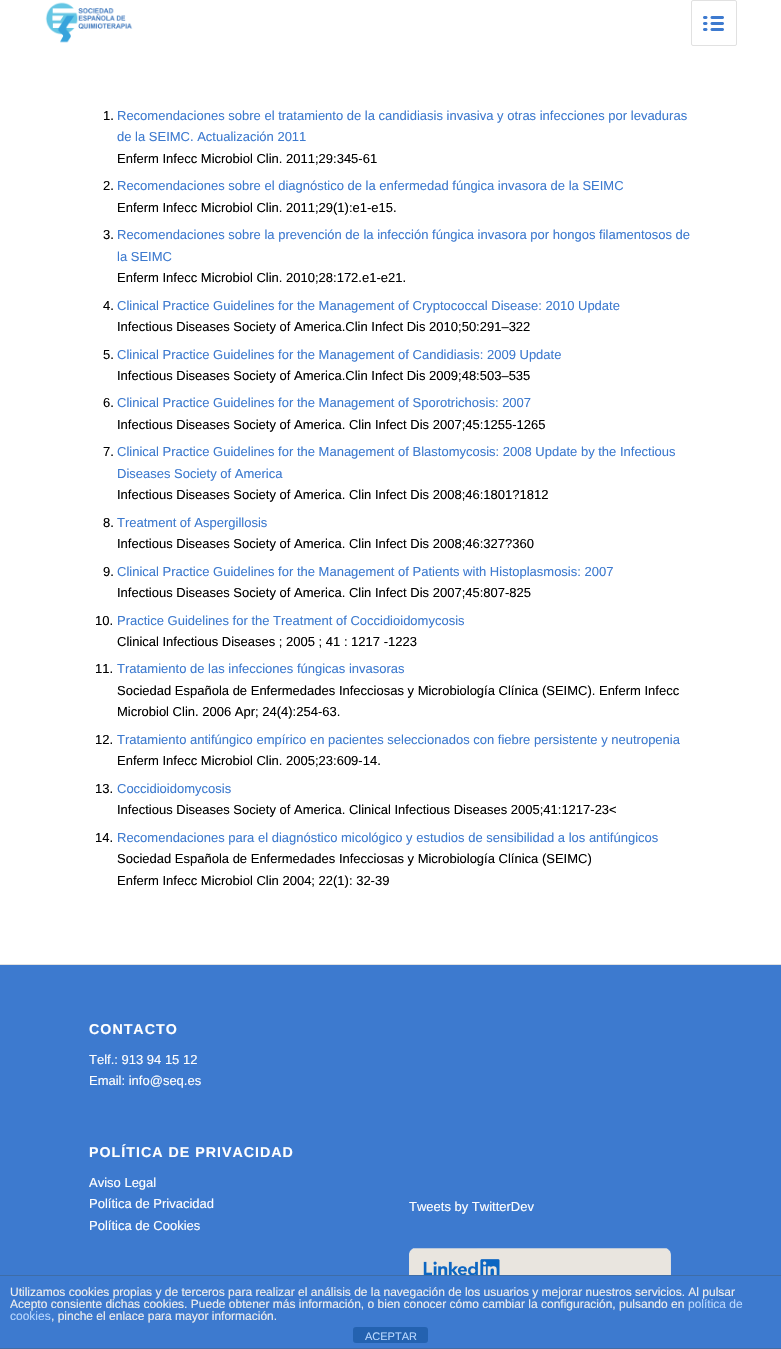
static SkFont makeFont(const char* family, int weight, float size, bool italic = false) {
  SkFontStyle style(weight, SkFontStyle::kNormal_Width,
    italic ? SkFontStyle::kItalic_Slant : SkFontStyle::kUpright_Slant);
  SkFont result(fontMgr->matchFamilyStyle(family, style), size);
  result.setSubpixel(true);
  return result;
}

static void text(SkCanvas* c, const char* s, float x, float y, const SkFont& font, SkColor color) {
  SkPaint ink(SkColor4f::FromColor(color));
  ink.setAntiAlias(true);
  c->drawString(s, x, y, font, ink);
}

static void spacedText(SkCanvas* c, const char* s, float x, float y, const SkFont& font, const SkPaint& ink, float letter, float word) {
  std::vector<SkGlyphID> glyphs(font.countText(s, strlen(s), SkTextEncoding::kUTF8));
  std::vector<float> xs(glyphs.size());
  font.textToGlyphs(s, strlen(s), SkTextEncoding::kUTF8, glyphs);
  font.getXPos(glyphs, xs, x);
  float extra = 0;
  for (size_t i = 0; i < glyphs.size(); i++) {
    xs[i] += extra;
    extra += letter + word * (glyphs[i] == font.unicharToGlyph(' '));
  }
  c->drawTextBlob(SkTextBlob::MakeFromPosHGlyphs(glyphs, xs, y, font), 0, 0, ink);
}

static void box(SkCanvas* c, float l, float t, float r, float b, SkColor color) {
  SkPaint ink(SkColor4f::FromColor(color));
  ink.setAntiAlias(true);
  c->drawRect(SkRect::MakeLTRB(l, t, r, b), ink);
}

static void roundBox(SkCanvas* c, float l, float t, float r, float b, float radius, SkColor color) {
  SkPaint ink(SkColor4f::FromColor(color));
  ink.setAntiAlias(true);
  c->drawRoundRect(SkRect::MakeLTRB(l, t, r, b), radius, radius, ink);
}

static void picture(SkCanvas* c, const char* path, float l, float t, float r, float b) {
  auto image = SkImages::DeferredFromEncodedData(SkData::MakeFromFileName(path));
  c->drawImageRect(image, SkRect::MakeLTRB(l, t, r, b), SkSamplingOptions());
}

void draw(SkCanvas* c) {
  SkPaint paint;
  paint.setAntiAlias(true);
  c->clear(0xffffffff);
  picture(c, "img_01.png", 45, 2, 133, 43);
  paint.setStyle(SkPaint::kStroke_Style);
  paint.setStrokeWidth(1);
  paint.setColor(0xffe1e1e1);
  c->drawRoundRect(SkRect::MakeLTRB(691.5f, 0.5f, 736.5f, 45.5f), 1.5f, 1.5f, paint);
  picture(c, "img_02.png", 703, 16, 724, 31);
  SkFont face1 = makeFont("Liberation Sans", 400, 13);
  text(c, "1.", 103, 120, face1, 0xff000000);
  text(c, "Recomendaciones sobre el tratamiento de la candidiasis invasiva y otras infecciones por levaduras", 117, 120, face1, 0xff3d7acf);
  text(c, "de la SEIMC. Actualización 2011", 117, 141, face1, 0xff3d7acf);
  text(c, "Enferm Infecc Microbiol Clin. 2011;29:345-61", 117, 163, face1, 0xff000000);
  text(c, "2.", 103, 190, face1, 0xff000000);
  text(c, "Recomendaciones sobre el diagnóstico de la enfermedad fúngica invasora de la SEIMC", 117, 190, face1, 0xff3d7acf);
  text(c, "Enferm Infecc Microbiol Clin. 2011;29(1):e1-e15.", 117, 212, face1, 0xff000000);
  text(c, "3.", 103, 239, face1, 0xff000000);
  text(c, "Recomendaciones sobre la prevención de la infección fúngica invasora por hongos filamentosos de", 117, 239, face1, 0xff3d7acf);
  text(c, "la SEIMC", 117, 261, face1, 0xff3d7acf);
  text(c, "Enferm Infecc Microbiol Clin. 2010;28:172.e1-e21.", 117, 282, face1, 0xff000000);
  text(c, "4.", 103, 310, face1, 0xff000000);
  text(c, "Clinical Practice Guidelines for the Management of Cryptococcal Disease: 2010 Update", 117, 310, face1, 0xff3d7acf);
  text(c, "Infectious Diseases Society of America.Clin Infect Dis 2010;50:291–322", 117, 331, face1, 0xff000000);
  text(c, "5.", 103, 359, face1, 0xff000000);
  text(c, "Clinical Practice Guidelines for the Management of Candidiasis: 2009 Update", 117, 359, face1, 0xff3d7acf);
  text(c, "Infectious Diseases Society of America.Clin Infect Dis 2009;48:503–535", 117, 380, face1, 0xff000000);
  text(c, "6.", 103, 407, face1, 0xff000000);
  text(c, "Clinical Practice Guidelines for the Management of Sporotrichosis: 2007", 117, 407, face1, 0xff3d7acf);
  text(c, "Infectious Diseases Society of America. Clin Infect Dis 2007;45:1255-1265", 117, 429, face1, 0xff000000);
  text(c, "7.", 103, 456, face1, 0xff000000);
  text(c, "Clinical Practice Guidelines for the Management of Blastomycosis: 2008 Update by the Infectious", 117, 456, face1, 0xff3d7acf);
  text(c, "Diseases Society of America", 117, 478, face1, 0xff3d7acf);
  text(c, "Infectious Diseases Society of America. Clin Infect Dis 2008;46:1801?1812", 117, 499, face1, 0xff000000);
  text(c, "8.", 103, 527, face1, 0xff000000);
  text(c, "Treatment of Aspergillosis", 117, 527, face1, 0xff3d7acf);
  text(c, "Infectious Diseases Society of America. Clin Infect Dis 2008;46:327?360", 117, 548, face1, 0xff000000);
  text(c, "9.", 103, 576, face1, 0xff000000);
  text(c, "Clinical Practice Guidelines for the Management of Patients with Histoplasmosis: 2007", 117, 576, face1, 0xff3d7acf);
  text(c, "Infectious Diseases Society of America. Clin Infect Dis 2007;45:807-825", 117, 597, face1, 0xff000000);
  text(c, "10.", 95, 625, face1, 0xff000000);
  text(c, "Practice Guidelines for the Treatment of Coccidioidomycosis", 117, 625, face1, 0xff3d7acf);
  text(c, "Clinical Infectious Diseases ; 2005 ; 41 : 1217 -1223", 117, 646, face1, 0xff000000);
  text(c, "11.", 95, 673, face1, 0xff000000);
  text(c, "Tratamiento de las infecciones fúngicas invasoras", 117, 673, face1, 0xff3d7acf);
  text(c, "Sociedad Española de Enfermedades Infecciosas y Microbiología Clínica (SEIMC). Enferm Infecc", 117, 695, face1, 0xff000000);
  text(c, "Microbiol Clin. 2006 Apr; 24(4):254-63.", 117, 716, face1, 0xff000000);
  text(c, "12.", 95, 744, face1, 0xff000000);
  text(c, "Tratamiento antifúngico empírico en pacientes seleccionados con fiebre persistente y neutropenia", 117, 744, face1, 0xff3d7acf);
  text(c, "Enferm Infecc Microbiol Clin. 2005;23:609-14.", 117, 765, face1, 0xff000000);
  text(c, "13.", 95, 793, face1, 0xff000000);
  text(c, "Coccidioidomycosis", 117, 793, face1, 0xff3d7acf);
  text(c, "Infectious Diseases Society of America. Clinical Infectious Diseases 2005;41:1217-23<", 117, 814, face1, 0xff000000);
  text(c, "14.", 95, 842, face1, 0xff000000);
  text(c, "Recomendaciones para el diagnóstico micológico y estudios de sensibilidad a los antifúngicos", 117, 842, face1, 0xff3d7acf);
  text(c, "Sociedad Española de Enfermedades Infecciosas y Microbiología Clínica (SEIMC)", 117, 863, face1, 0xff000000);
  text(c, "Enferm Infecc Microbiol Clin 2004; 22(1): 32-39", 117, 885, face1, 0xff000000);
  box(c, 0, 965, 781, 1275, 0xff3d7acf);
  box(c, 0, 964, 781, 965, 0xffe1e1e1);
  SkFont face2 = makeFont("Liberation Sans", 700, 14.25f);
  paint.setStyle(SkPaint::kFill_Style);
  paint.setColor(0xffffffff);
  spacedText(c, "CONTACTO", 89, 1034, face2, paint, 1, 0);
  text(c, "Telf.: 913 94 15 12", 89, 1064, face1, 0xffffffff);
  text(c, "Email: info@seq.es", 89, 1085, face1, 0xffffffff);
  spacedText(c, "POLÍTICA DE PRIVACIDAD", 89, 1157, face2, paint, 1, 0);
  text(c, "Aviso Legal", 89, 1187, face1, 0xffffffff);
  text(c, "Política de Privacidad", 89, 1208, face1, 0xffffffff);
  text(c, "Política de Cookies", 89, 1230, face1, 0xffffffff);
  text(c, "Tweets by TwitterDev", 409, 1211, face1, 0xffffffff);
  picture(c, "img_03.png", 409, 1248, 671, 1275);
  box(c, 0, 1276, 781, 1348, 0xff3d7acf);
  box(c, 0, 1275, 781, 1276, 0xff3f6da7);
  box(c, 0, 1348, 781, 1349, 0xff3f6da7);
  SkFont face3 = makeFont("Liberation Sans", 400, 12);
  text(c, "Utilizamos cookies propias y de terceros para realizar el análisis de la navegación de los usuarios y mejorar nuestros servicios. Al pulsar", 10, 1296, face3, 0xffeeeeee);
  text(c, "Acepto consiente dichas cookies. Puede obtener más información, o bien conocer cómo cambiar la configuración, pulsando en", 10, 1308, face3, 0xffeeeeee);
  text(c, "política de", 688, 1308, face3, 0xffb7d7ff);
  text(c, "cookies", 10, 1320, face3, 0xffb7d7ff);
  text(c, ", pinche el enlace para mayor información.", 51, 1320, face3, 0xffeeeeee);
  roundBox(c, 353, 1327, 428, 1343, 3, 0xff2462b0);
  SkFont face4 = makeFont("Liberation Sans", 400, 11);
  text(c, "ACEPTAR", 365, 1340, face4, 0xffb7d7ff);
}
